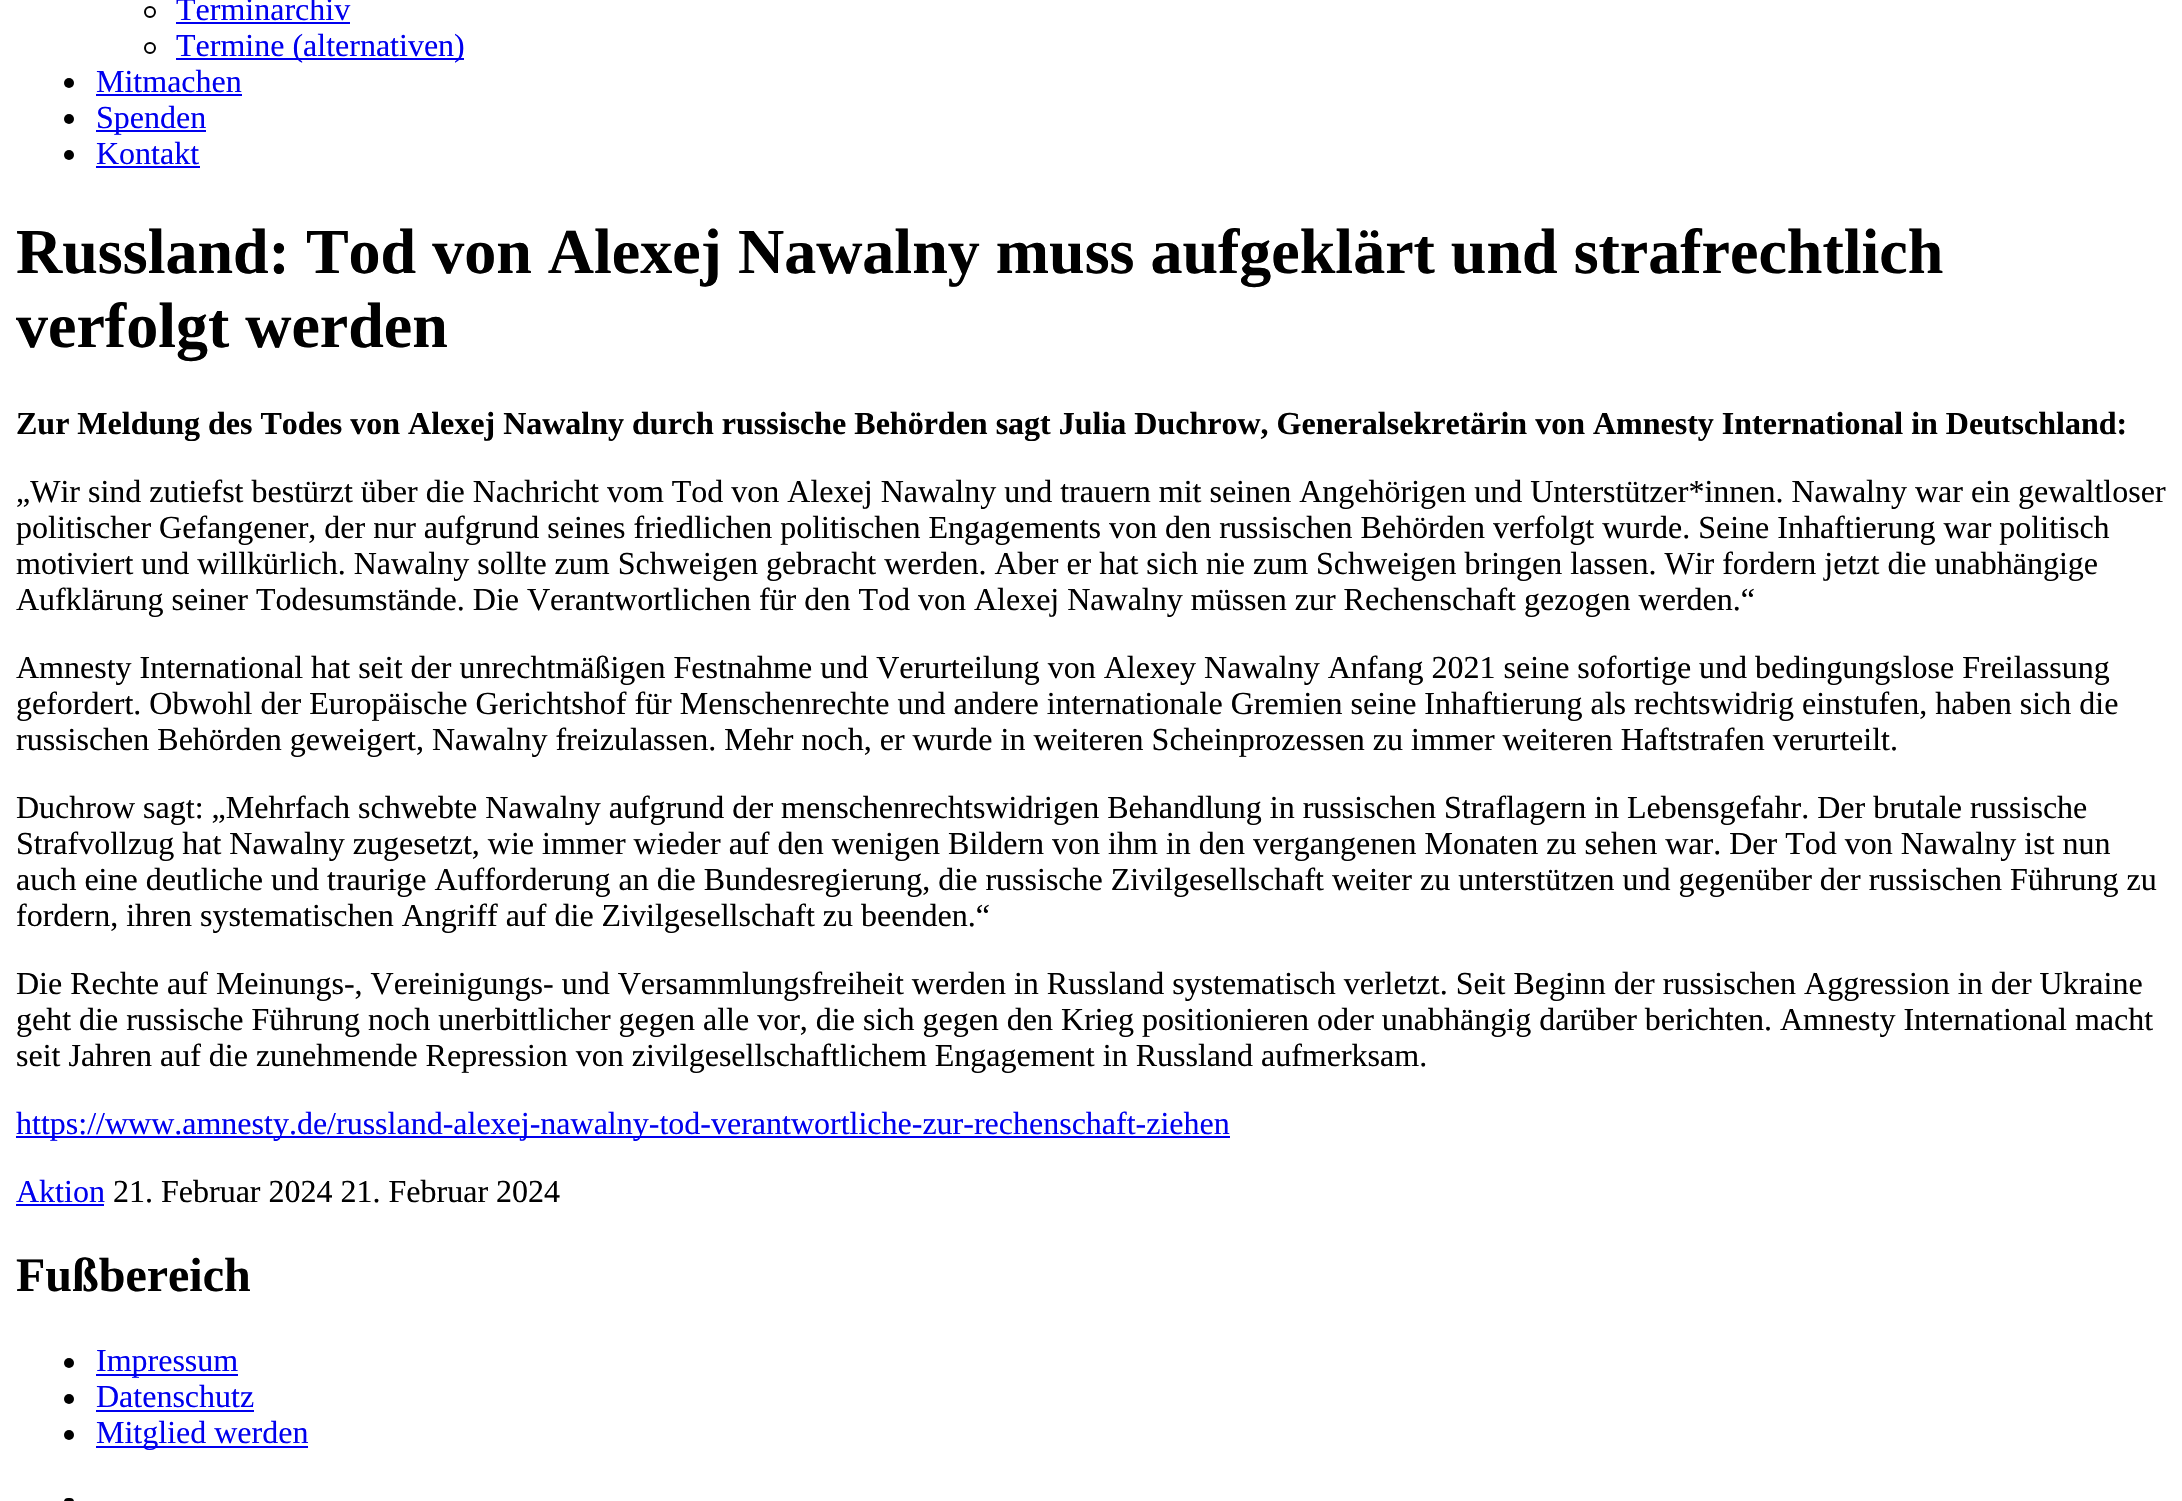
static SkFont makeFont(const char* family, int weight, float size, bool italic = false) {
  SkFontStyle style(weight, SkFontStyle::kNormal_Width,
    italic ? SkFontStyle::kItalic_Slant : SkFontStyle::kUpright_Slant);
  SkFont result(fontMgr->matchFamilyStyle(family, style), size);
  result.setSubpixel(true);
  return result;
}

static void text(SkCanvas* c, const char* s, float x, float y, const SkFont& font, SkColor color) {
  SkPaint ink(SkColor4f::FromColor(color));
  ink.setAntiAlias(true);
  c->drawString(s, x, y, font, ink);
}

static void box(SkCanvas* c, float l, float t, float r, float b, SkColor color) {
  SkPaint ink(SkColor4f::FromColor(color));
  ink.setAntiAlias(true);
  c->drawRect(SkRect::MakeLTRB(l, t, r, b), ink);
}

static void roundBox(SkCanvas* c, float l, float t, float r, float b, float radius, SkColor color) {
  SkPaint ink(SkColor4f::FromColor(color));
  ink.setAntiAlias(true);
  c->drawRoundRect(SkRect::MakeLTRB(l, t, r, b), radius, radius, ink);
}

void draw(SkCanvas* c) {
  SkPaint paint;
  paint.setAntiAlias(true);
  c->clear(0xffffffff);
  paint.setStyle(SkPaint::kStroke_Style);
  paint.setStrokeWidth(2);
  paint.setColor(0xff000000);
  c->drawCircle(150, 12, 5, paint);
  SkFont face1 = makeFont("Liberation Serif", 400, 32);
  text(c, "Terminarchiv", 176, 20, face1, 0xff0000ee);
  box(c, 176, 22, 350, 24, 0xff0000ee);
  c->drawCircle(150, 48, 5, paint);
  box(c, 176, 58, 464, 60, 0xff0000ee);
  text(c, "Termine (alternativen)", 176, 56, face1, 0xff0000ee);
  paint.setStyle(SkPaint::kFill_Style);
  c->drawCircle(69, 83, 5, paint);
  text(c, "Mitmachen", 96, 92, face1, 0xff0000ee);
  box(c, 96, 94, 242, 96, 0xff0000ee);
  c->drawCircle(69, 119, 5, paint);
  box(c, 96, 130, 206, 132, 0xff0000ee);
  text(c, "Spenden", 96, 128, face1, 0xff0000ee);
  c->drawCircle(69, 155, 5, paint);
  text(c, "Kontakt", 96, 164, face1, 0xff0000ee);
  box(c, 96, 166, 200, 168, 0xff0000ee);
  SkFont face2 = makeFont("Liberation Serif", 700, 64);
  text(c, "Russland: Tod von Alexej Nawalny muss aufgeklärt und strafrechtlich", 16, 273, face2, 0xff000000);
  text(c, "verfolgt werden", 16, 347, face2, 0xff000000);
  SkFont face3 = makeFont("Liberation Serif", 700, 32);
  text(c, "Zur Meldung des Todes von Alexej Nawalny durch russische Behörden sagt Julia Duchrow, Generalsekretärin von Amnesty International in Deutschland:", 16, 434, face3, 0xff000000);
  text(c, "„Wir sind zutiefst bestürzt über die Nachricht vom Tod von Alexej Nawalny und trauern mit seinen Angehörigen und Unterstützer*innen. Nawalny war ein gewaltloser", 16, 502, face1, 0xff000000);
  text(c, "politischer Gefangener, der nur aufgrund seines friedlichen politischen Engagements von den russischen Behörden verfolgt wurde. Seine Inhaftierung war politisch", 16, 538, face1, 0xff000000);
  text(c, "motiviert und willkürlich. Nawalny sollte zum Schweigen gebracht werden. Aber er hat sich nie zum Schweigen bringen lassen. Wir fordern jetzt die unabhängige", 16, 574, face1, 0xff000000);
  text(c, "Aufklärung seiner Todesumstände. Die Verantwortlichen für den Tod von Alexej Nawalny müssen zur Rechenschaft gezogen werden.“", 16, 610, face1, 0xff000000);
  text(c, "Amnesty International hat seit der unrechtmäßigen Festnahme und Verurteilung von Alexey Nawalny Anfang 2021 seine sofortige und bedingungslose Freilassung", 16, 678, face1, 0xff000000);
  text(c, "gefordert. Obwohl der Europäische Gerichtshof für Menschenrechte und andere internationale Gremien seine Inhaftierung als rechtswidrig einstufen, haben sich die", 16, 714, face1, 0xff000000);
  text(c, "russischen Behörden geweigert, Nawalny freizulassen. Mehr noch, er wurde in weiteren Scheinprozessen zu immer weiteren Haftstrafen verurteilt.", 16, 750, face1, 0xff000000);
  text(c, "Duchrow sagt: „Mehrfach schwebte Nawalny aufgrund der menschenrechtswidrigen Behandlung in russischen Straflagern in Lebensgefahr. Der brutale russische", 16, 818, face1, 0xff000000);
  text(c, "Strafvollzug hat Nawalny zugesetzt, wie immer wieder auf den wenigen Bildern von ihm in den vergangenen Monaten zu sehen war. Der Tod von Nawalny ist nun", 16, 854, face1, 0xff000000);
  text(c, "auch eine deutliche und traurige Aufforderung an die Bundesregierung, die russische Zivilgesellschaft weiter zu unterstützen und gegenüber der russischen Führung zu", 16, 890, face1, 0xff000000);
  text(c, "fordern, ihren systematischen Angriff auf die Zivilgesellschaft zu beenden.“", 16, 926, face1, 0xff000000);
  text(c, "Die Rechte auf Meinungs-, Vereinigungs- und Versammlungsfreiheit werden in Russland systematisch verletzt. Seit Beginn der russischen Aggression in der Ukraine", 16, 994, face1, 0xff000000);
  text(c, "geht die russische Führung noch unerbittlicher gegen alle vor, die sich gegen den Krieg positionieren oder unabhängig darüber berichten. Amnesty International macht", 16, 1030, face1, 0xff000000);
  text(c, "seit Jahren auf die zunehmende Repression von zivilgesellschaftlichem Engagement in Russland aufmerksam.", 16, 1066, face1, 0xff000000);
  box(c, 16, 1136, 1230, 1138, 0xff0000ee);
  text(c, "https://www.amnesty.de/russland-alexej-nawalny-tod-verantwortliche-zur-rechenschaft-ziehen", 16, 1134, face1, 0xff0000ee);
  text(c, "Aktion", 16, 1202, face1, 0xff0000ee);
  box(c, 16, 1204, 104, 1206, 0xff0000ee);
  text(c, "21. Februar 2024 21. Februar 2024", 113, 1202, face1, 0xff000000);
  SkFont face4 = makeFont("Liberation Serif", 700, 48);
  text(c, "Fußbereich", 16, 1291, face4, 0xff000000);
  c->drawCircle(69, 1363, 5, paint);
  box(c, 96, 1374, 238, 1376, 0xff0000ee);
  text(c, "Impressum", 96, 1371, face1, 0xff0000ee);
  c->drawCircle(69, 1399, 5, paint);
  text(c, "Datenschutz", 96, 1407, face1, 0xff0000ee);
  box(c, 96, 1410, 254, 1412, 0xff0000ee);
  c->drawCircle(69, 1435, 5, paint);
  box(c, 96, 1446, 308, 1448, 0xff0000ee);
  text(c, "Mitglied werden", 96, 1443, face1, 0xff0000ee);
  roundBox(c, 64, 1498, 74, 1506, 5, 0xff000000);
}
